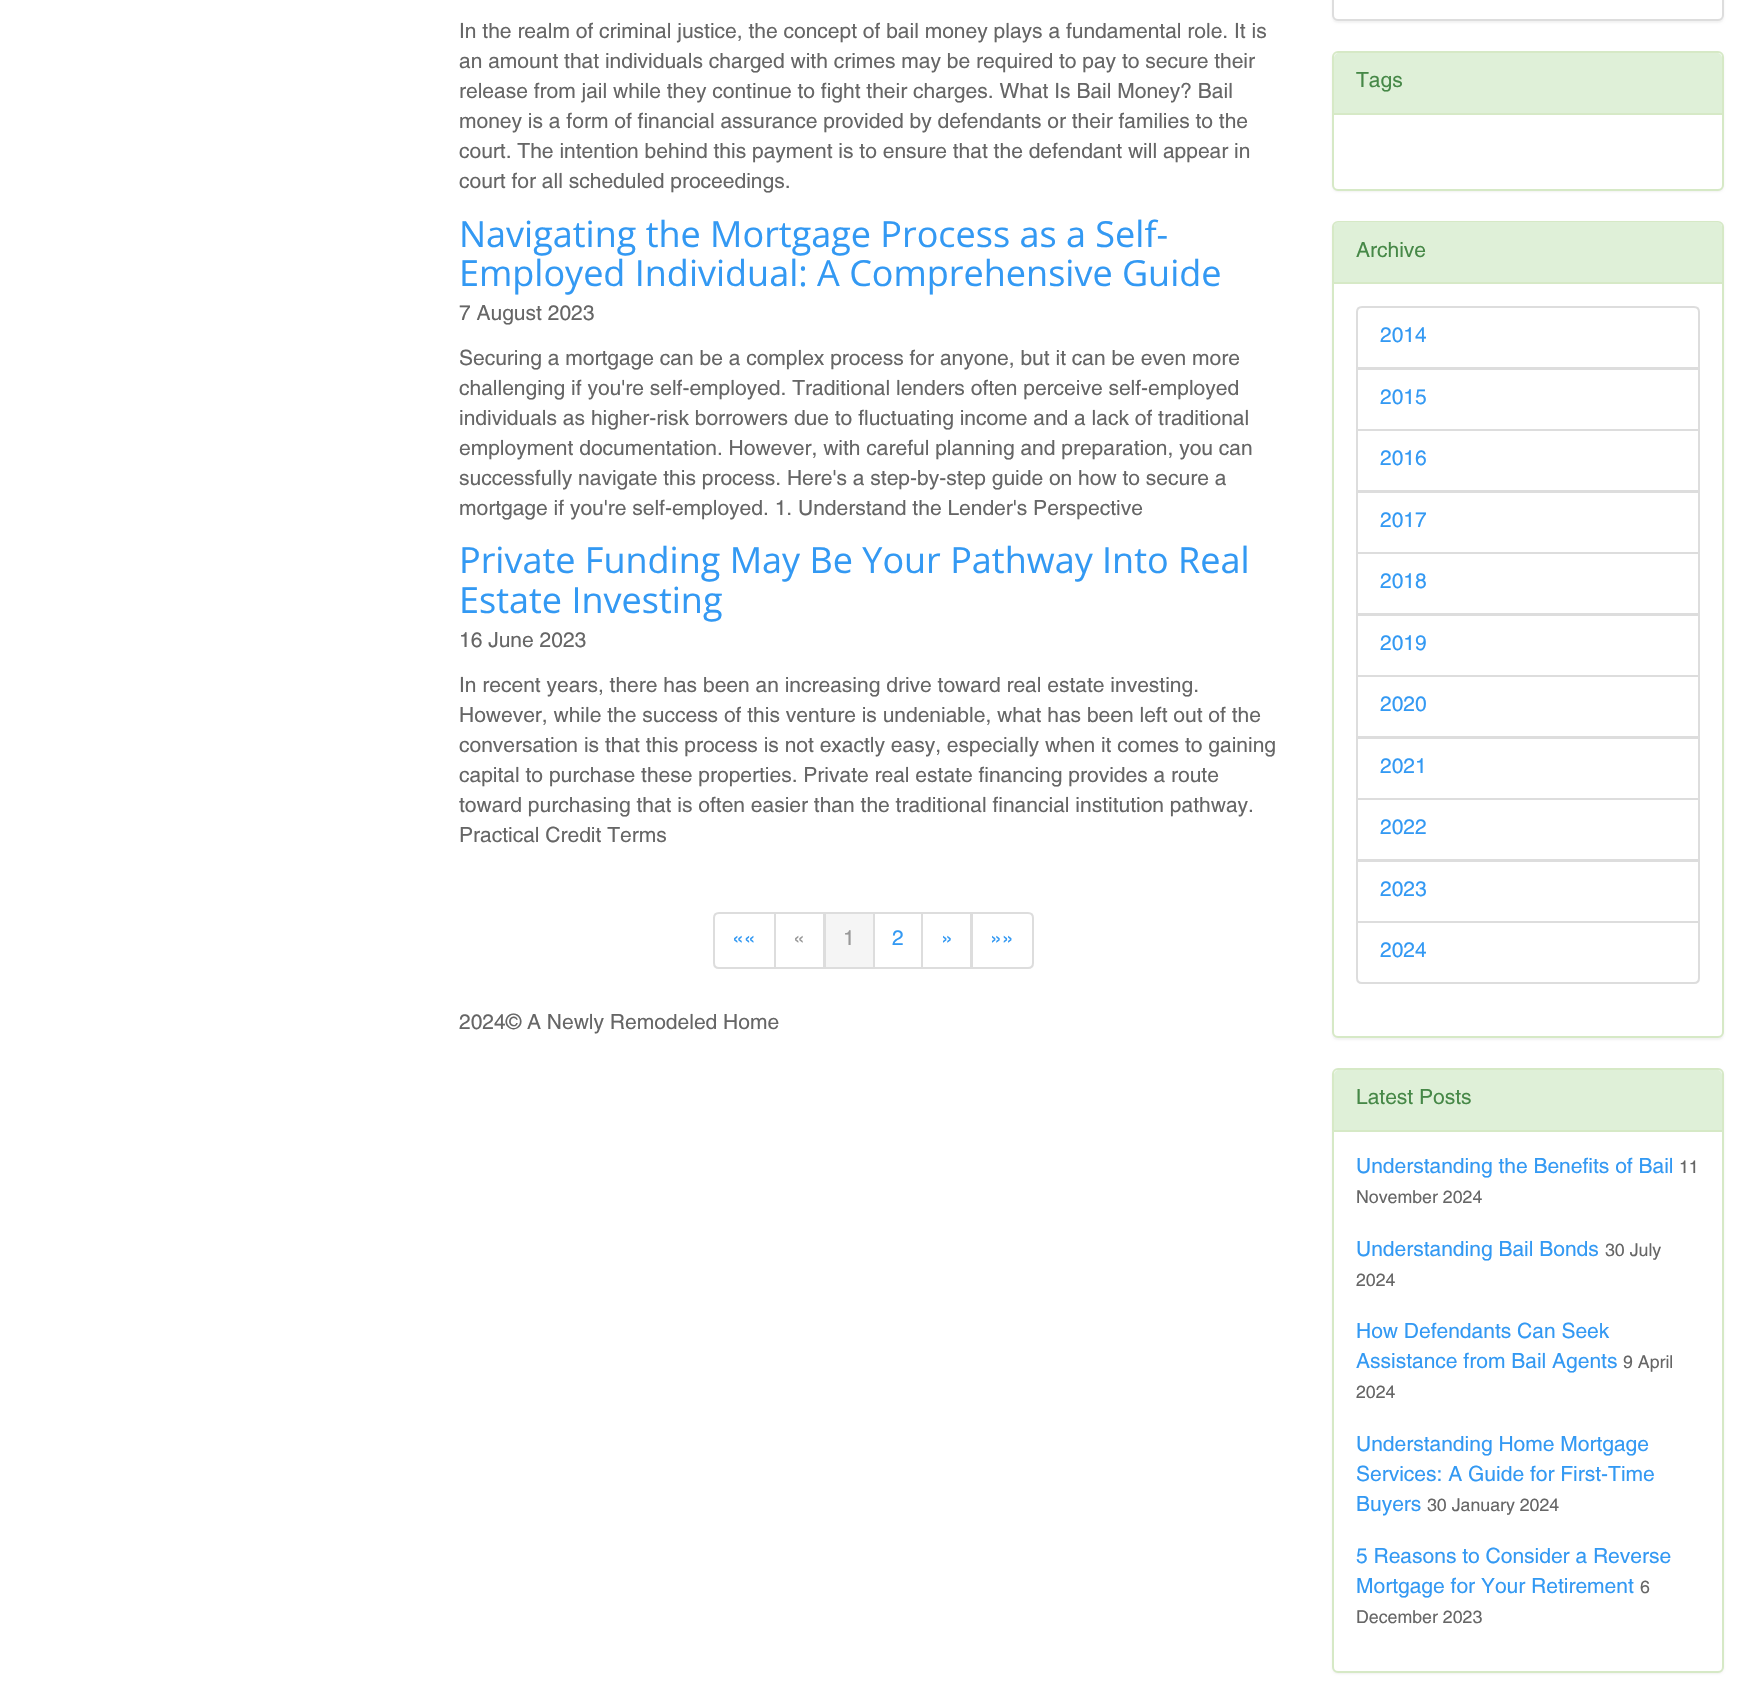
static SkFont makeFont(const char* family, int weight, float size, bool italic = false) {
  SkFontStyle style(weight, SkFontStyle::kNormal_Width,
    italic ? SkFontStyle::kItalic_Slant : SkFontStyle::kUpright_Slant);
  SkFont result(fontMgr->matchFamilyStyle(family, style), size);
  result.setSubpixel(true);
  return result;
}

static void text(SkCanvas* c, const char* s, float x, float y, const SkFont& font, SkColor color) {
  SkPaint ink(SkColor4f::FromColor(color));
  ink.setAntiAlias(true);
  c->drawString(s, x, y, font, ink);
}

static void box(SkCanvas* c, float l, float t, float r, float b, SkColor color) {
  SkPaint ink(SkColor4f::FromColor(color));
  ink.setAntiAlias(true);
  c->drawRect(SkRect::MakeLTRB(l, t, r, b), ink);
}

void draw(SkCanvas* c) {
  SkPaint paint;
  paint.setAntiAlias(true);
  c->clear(0xffffffff);
  SkFont face1 = makeFont("Helvetica", 400, 21);
  text(c, "In the realm of criminal justice, the concept of bail money plays a fundamental role. It is", 459, 38, face1, 0xff666666);
  text(c, "an amount that individuals charged with crimes may be required to pay to secure their", 459, 68, face1, 0xff666666);
  text(c, "release from jail while they continue to fight their charges. What Is Bail Money? Bail", 459, 98, face1, 0xff666666);
  text(c, "money is a form of financial assurance provided by defendants or their families to the", 459, 128, face1, 0xff666666);
  text(c, "court. The intention behind this payment is to ensure that the defendant will appear in", 459, 158, face1, 0xff666666);
  text(c, "court for all scheduled proceedings.", 459, 188, face1, 0xff666666);
  SkFont face2 = makeFont("Open Sans", 400, 36);
  text(c, "Navigating the Mortgage Process as a Self-", 459, 247, face2, 0xff3399f3);
  text(c, "Employed Individual: A Comprehensive Guide", 459, 286, face2, 0xff3399f3);
  text(c, "7 August 2023", 459, 320, face1, 0xff666666);
  text(c, "Securing a mortgage can be a complex process for anyone, but it can be even more", 459, 365, face1, 0xff666666);
  text(c, "challenging if you're self-employed. Traditional lenders often perceive self-employed", 459, 395, face1, 0xff666666);
  text(c, "individuals as higher-risk borrowers due to fluctuating income and a lack of traditional", 459, 425, face1, 0xff666666);
  text(c, "employment documentation. However, with careful planning and preparation, you can", 459, 455, face1, 0xff666666);
  text(c, "successfully navigate this process. Here's a step-by-step guide on how to secure a", 459, 485, face1, 0xff666666);
  text(c, "mortgage if you're self-employed. 1. Understand the Lender's Perspective", 459, 515, face1, 0xff666666);
  text(c, "Private Funding May Be Your Pathway Into Real", 459, 573, face2, 0xff3399f3);
  text(c, "Estate Investing", 459, 613, face2, 0xff3399f3);
  text(c, "16 June 2023", 459, 647, face1, 0xff666666);
  text(c, "In recent years, there has been an increasing drive toward real estate investing.", 459, 692, face1, 0xff666666);
  text(c, "However, while the success of this venture is undeniable, what has been left out of the", 459, 722, face1, 0xff666666);
  text(c, "conversation is that this process is not exactly easy, especially when it comes to gaining", 459, 752, face1, 0xff666666);
  text(c, "capital to purchase these properties. Private real estate financing provides a route", 459, 782, face1, 0xff666666);
  text(c, "toward purchasing that is often easier than the traditional financial institution pathway.", 459, 812, face1, 0xff666666);
  text(c, "Practical Credit Terms", 459, 842, face1, 0xff666666);
  paint.setStyle(SkPaint::kStroke_Style);
  paint.setStrokeWidth(2);
  paint.setColor(0xffdddddd);
  c->drawPath(SkPathBuilder().moveTo(719, 913).lineTo(775, 913).lineTo(775, 968).lineTo(719, 968).cubicTo(716, 968, 714, 966, 714, 963).lineTo(714, 918).cubicTo(714, 915, 716, 913, 719, 913).close().detach(), paint);
  text(c, "««", 732, 945, face1, 0xff3399f3);
  c->drawRect(SkRect::MakeLTRB(775, 913, 824, 968), paint);
  text(c, "«", 793, 945, face1, 0xff999999);
  c->drawRect(SkRect::MakeLTRB(874, 913, 922, 968), paint);
  paint.setStyle(SkPaint::kFill_Style);
  paint.setColor(0xfff5f5f5);
  c->drawRect(SkRect::MakeLTRB(825, 913, 874, 968), paint);
  paint.setStyle(SkPaint::kStroke_Style);
  paint.setColor(0xffdddddd);
  c->drawRect(SkRect::MakeLTRB(825, 913, 874, 968), paint);
  text(c, "1", 843, 945, face1, 0xff999999);
  text(c, "2", 892, 945, face1, 0xff3399f3);
  c->drawRect(SkRect::MakeLTRB(922, 913, 971, 968), paint);
  text(c, "»", 941, 945, face1, 0xff3399f3);
  paint.setStyle(SkPaint::kFill_Style);
  paint.setColor(0xffffffff);
  c->drawPath(SkPathBuilder().moveTo(972, 913).lineTo(1028, 913).cubicTo(1031, 913, 1033, 915, 1033, 918).lineTo(1033, 963).cubicTo(1033, 966, 1031, 968, 1028, 968).lineTo(972, 968).close().detach(), paint);
  paint.setStyle(SkPaint::kStroke_Style);
  paint.setColor(0xffdddddd);
  c->drawPath(SkPathBuilder().moveTo(972, 913).lineTo(1028, 913).cubicTo(1031, 913, 1033, 915, 1033, 918).lineTo(1033, 963).cubicTo(1033, 966, 1031, 968, 1028, 968).lineTo(972, 968).close().detach(), paint);
  text(c, "»»", 990, 945, face1, 0xff3399f3);
  text(c, "2024© A Newly Remodeled Home", 459, 1029, face1, 0xff666666);
  paint.setStyle(SkPaint::kFill_Style);
  paint.setColor(0x0d000000);
  paint.setMaskFilter(SkMaskFilter::MakeBlur(kNormal_SkBlurStyle, 1));
  c->drawRoundRect(SkRect::MakeLTRB(1332, -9, 1724, 23), 6, 6, paint);
  paint.setMaskFilter(nullptr);
  paint.setColor(0xffffffff);
  c->drawRoundRect(SkRect::MakeLTRB(1333, -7, 1723, 20), 5, 5, paint);
  paint.setStyle(SkPaint::kStroke_Style);
  paint.setColor(0xffdddddd);
  c->drawRoundRect(SkRect::MakeLTRB(1333, -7, 1723, 20), 5, 5, paint);
  paint.setStyle(SkPaint::kFill_Style);
  paint.setColor(0x0d000000);
  paint.setMaskFilter(SkMaskFilter::MakeBlur(kNormal_SkBlurStyle, 1));
  c->drawRoundRect(SkRect::MakeLTRB(1332, 53, 1724, 192), 6, 6, paint);
  paint.setMaskFilter(nullptr);
  paint.setColor(0xffffffff);
  c->drawRoundRect(SkRect::MakeLTRB(1333, 52, 1723, 190), 5, 5, paint);
  paint.setStyle(SkPaint::kStroke_Style);
  paint.setColor(0xffd6e9c6);
  c->drawRoundRect(SkRect::MakeLTRB(1333, 52, 1723, 190), 5, 5, paint);
  paint.setStyle(SkPaint::kFill_Style);
  paint.setColor(0xffdff0d8);
  c->drawPath(SkPathBuilder().moveTo(1339, 53).lineTo(1717, 53).cubicTo(1720, 53, 1722, 55, 1722, 58).lineTo(1722, 114).lineTo(1334, 114).lineTo(1334, 58).cubicTo(1334, 55, 1336, 53, 1339, 53).close().detach(), paint);
  box(c, 1334, 113, 1722, 115, 0xffd6e9c6);
  text(c, "Tags", 1356, 87, face1, 0xff468847);
  paint.setColor(0x0d000000);
  paint.setMaskFilter(SkMaskFilter::MakeBlur(kNormal_SkBlurStyle, 1));
  c->drawRoundRect(SkRect::MakeLTRB(1332, 222, 1724, 1040), 6, 6, paint);
  paint.setMaskFilter(nullptr);
  paint.setColor(0xffffffff);
  c->drawRoundRect(SkRect::MakeLTRB(1333, 222, 1723, 1037), 5, 5, paint);
  paint.setStyle(SkPaint::kStroke_Style);
  paint.setColor(0xffd6e9c6);
  c->drawRoundRect(SkRect::MakeLTRB(1333, 222, 1723, 1037), 5, 5, paint);
  paint.setStyle(SkPaint::kFill_Style);
  paint.setColor(0xffdff0d8);
  c->drawPath(SkPathBuilder().moveTo(1339, 222).lineTo(1717, 222).cubicTo(1720, 222, 1722, 224, 1722, 227).lineTo(1722, 284).lineTo(1334, 284).lineTo(1334, 227).cubicTo(1334, 224, 1336, 222, 1339, 222).close().detach(), paint);
  box(c, 1334, 282, 1722, 284, 0xffd6e9c6);
  text(c, "Archive", 1356, 257, face1, 0xff468847);
  paint.setStyle(SkPaint::kStroke_Style);
  paint.setColor(0xffdddddd);
  c->drawPath(SkPathBuilder().moveTo(1362, 307).lineTo(1694, 307).cubicTo(1697, 307, 1699, 309, 1699, 312).lineTo(1699, 368).lineTo(1357, 368).lineTo(1357, 312).cubicTo(1357, 309, 1359, 307, 1362, 307).close().detach(), paint);
  text(c, "2014", 1380, 342, face1, 0xff3399f3);
  c->drawRect(SkRect::MakeLTRB(1357, 369, 1699, 430), paint);
  text(c, "2015", 1380, 404, face1, 0xff3399f3);
  c->drawRect(SkRect::MakeLTRB(1357, 430, 1699, 491), paint);
  text(c, "2016", 1380, 465, face1, 0xff3399f3);
  c->drawRect(SkRect::MakeLTRB(1357, 492, 1699, 553), paint);
  text(c, "2017", 1380, 527, face1, 0xff3399f3);
  c->drawRect(SkRect::MakeLTRB(1357, 553, 1699, 614), paint);
  text(c, "2018", 1380, 588, face1, 0xff3399f3);
  c->drawRect(SkRect::MakeLTRB(1357, 615, 1699, 676), paint);
  text(c, "2019", 1380, 650, face1, 0xff3399f3);
  c->drawRect(SkRect::MakeLTRB(1357, 676, 1699, 737), paint);
  text(c, "2020", 1380, 711, face1, 0xff3399f3);
  c->drawRect(SkRect::MakeLTRB(1357, 738, 1699, 799), paint);
  text(c, "2021", 1380, 773, face1, 0xff3399f3);
  c->drawRect(SkRect::MakeLTRB(1357, 799, 1699, 860), paint);
  text(c, "2022", 1380, 834, face1, 0xff3399f3);
  c->drawRect(SkRect::MakeLTRB(1357, 861, 1699, 922), paint);
  text(c, "2023", 1380, 896, face1, 0xff3399f3);
  paint.setStyle(SkPaint::kFill_Style);
  paint.setColor(0xffffffff);
  c->drawPath(SkPathBuilder().moveTo(1357, 922).lineTo(1699, 922).lineTo(1699, 978).cubicTo(1699, 981, 1697, 983, 1694, 983).lineTo(1362, 983).cubicTo(1359, 983, 1357, 981, 1357, 978).close().detach(), paint);
  paint.setStyle(SkPaint::kStroke_Style);
  paint.setColor(0xffdddddd);
  c->drawPath(SkPathBuilder().moveTo(1357, 922).lineTo(1699, 922).lineTo(1699, 978).cubicTo(1699, 981, 1697, 983, 1694, 983).lineTo(1362, 983).cubicTo(1359, 983, 1357, 981, 1357, 978).close().detach(), paint);
  text(c, "2024", 1380, 957, face1, 0xff3399f3);
  paint.setStyle(SkPaint::kFill_Style);
  paint.setColor(0x0d000000);
  paint.setMaskFilter(SkMaskFilter::MakeBlur(kNormal_SkBlurStyle, 1));
  c->drawRoundRect(SkRect::MakeLTRB(1332, 1070, 1724, 1674), 6, 6, paint);
  paint.setMaskFilter(nullptr);
  paint.setColor(0xffffffff);
  c->drawRoundRect(SkRect::MakeLTRB(1333, 1069, 1723, 1672), 5, 5, paint);
  paint.setStyle(SkPaint::kStroke_Style);
  paint.setColor(0xffd6e9c6);
  c->drawRoundRect(SkRect::MakeLTRB(1333, 1069, 1723, 1672), 5, 5, paint);
  paint.setStyle(SkPaint::kFill_Style);
  paint.setColor(0xffdff0d8);
  c->drawPath(SkPathBuilder().moveTo(1339, 1070).lineTo(1717, 1070).cubicTo(1720, 1070, 1722, 1072, 1722, 1075).lineTo(1722, 1131).lineTo(1334, 1131).lineTo(1334, 1075).cubicTo(1334, 1072, 1336, 1070, 1339, 1070).close().detach(), paint);
  box(c, 1334, 1130, 1722, 1132, 0xffd6e9c6);
  text(c, "Latest Posts", 1356, 1104, face1, 0xff468847);
  text(c, "Understanding the Benefits of Bail", 1356, 1173, face1, 0xff3399f3);
  SkFont face3 = makeFont("Helvetica", 400, 17.75f);
  text(c, "11", 1679, 1173, face3, 0xff666666);
  text(c, "November 2024", 1356, 1203, face3, 0xff666666);
  text(c, "Understanding Bail Bonds", 1356, 1256, face1, 0xff3399f3);
  text(c, "30 July", 1605, 1256, face3, 0xff666666);
  text(c, "2024", 1356, 1286, face3, 0xff666666);
  text(c, "How Defendants Can Seek", 1356, 1338, face1, 0xff3399f3);
  text(c, "Assistance from Bail Agents", 1356, 1368, face1, 0xff3399f3);
  text(c, "9 April", 1623, 1368, face3, 0xff666666);
  text(c, "2024", 1356, 1398, face3, 0xff666666);
  text(c, "Understanding Home Mortgage", 1356, 1451, face1, 0xff3399f3);
  text(c, "Services: A Guide for First-Time", 1356, 1481, face1, 0xff3399f3);
  text(c, "Buyers", 1356, 1511, face1, 0xff3399f3);
  text(c, "30 January 2024", 1427, 1511, face3, 0xff666666);
  text(c, "5 Reasons to Consider a Reverse", 1356, 1563, face1, 0xff3399f3);
  text(c, "Mortgage for Your Retirement", 1356, 1593, face1, 0xff3399f3);
  text(c, "6", 1640, 1593, face3, 0xff666666);
  text(c, "December 2023", 1356, 1623, face3, 0xff666666);
}
